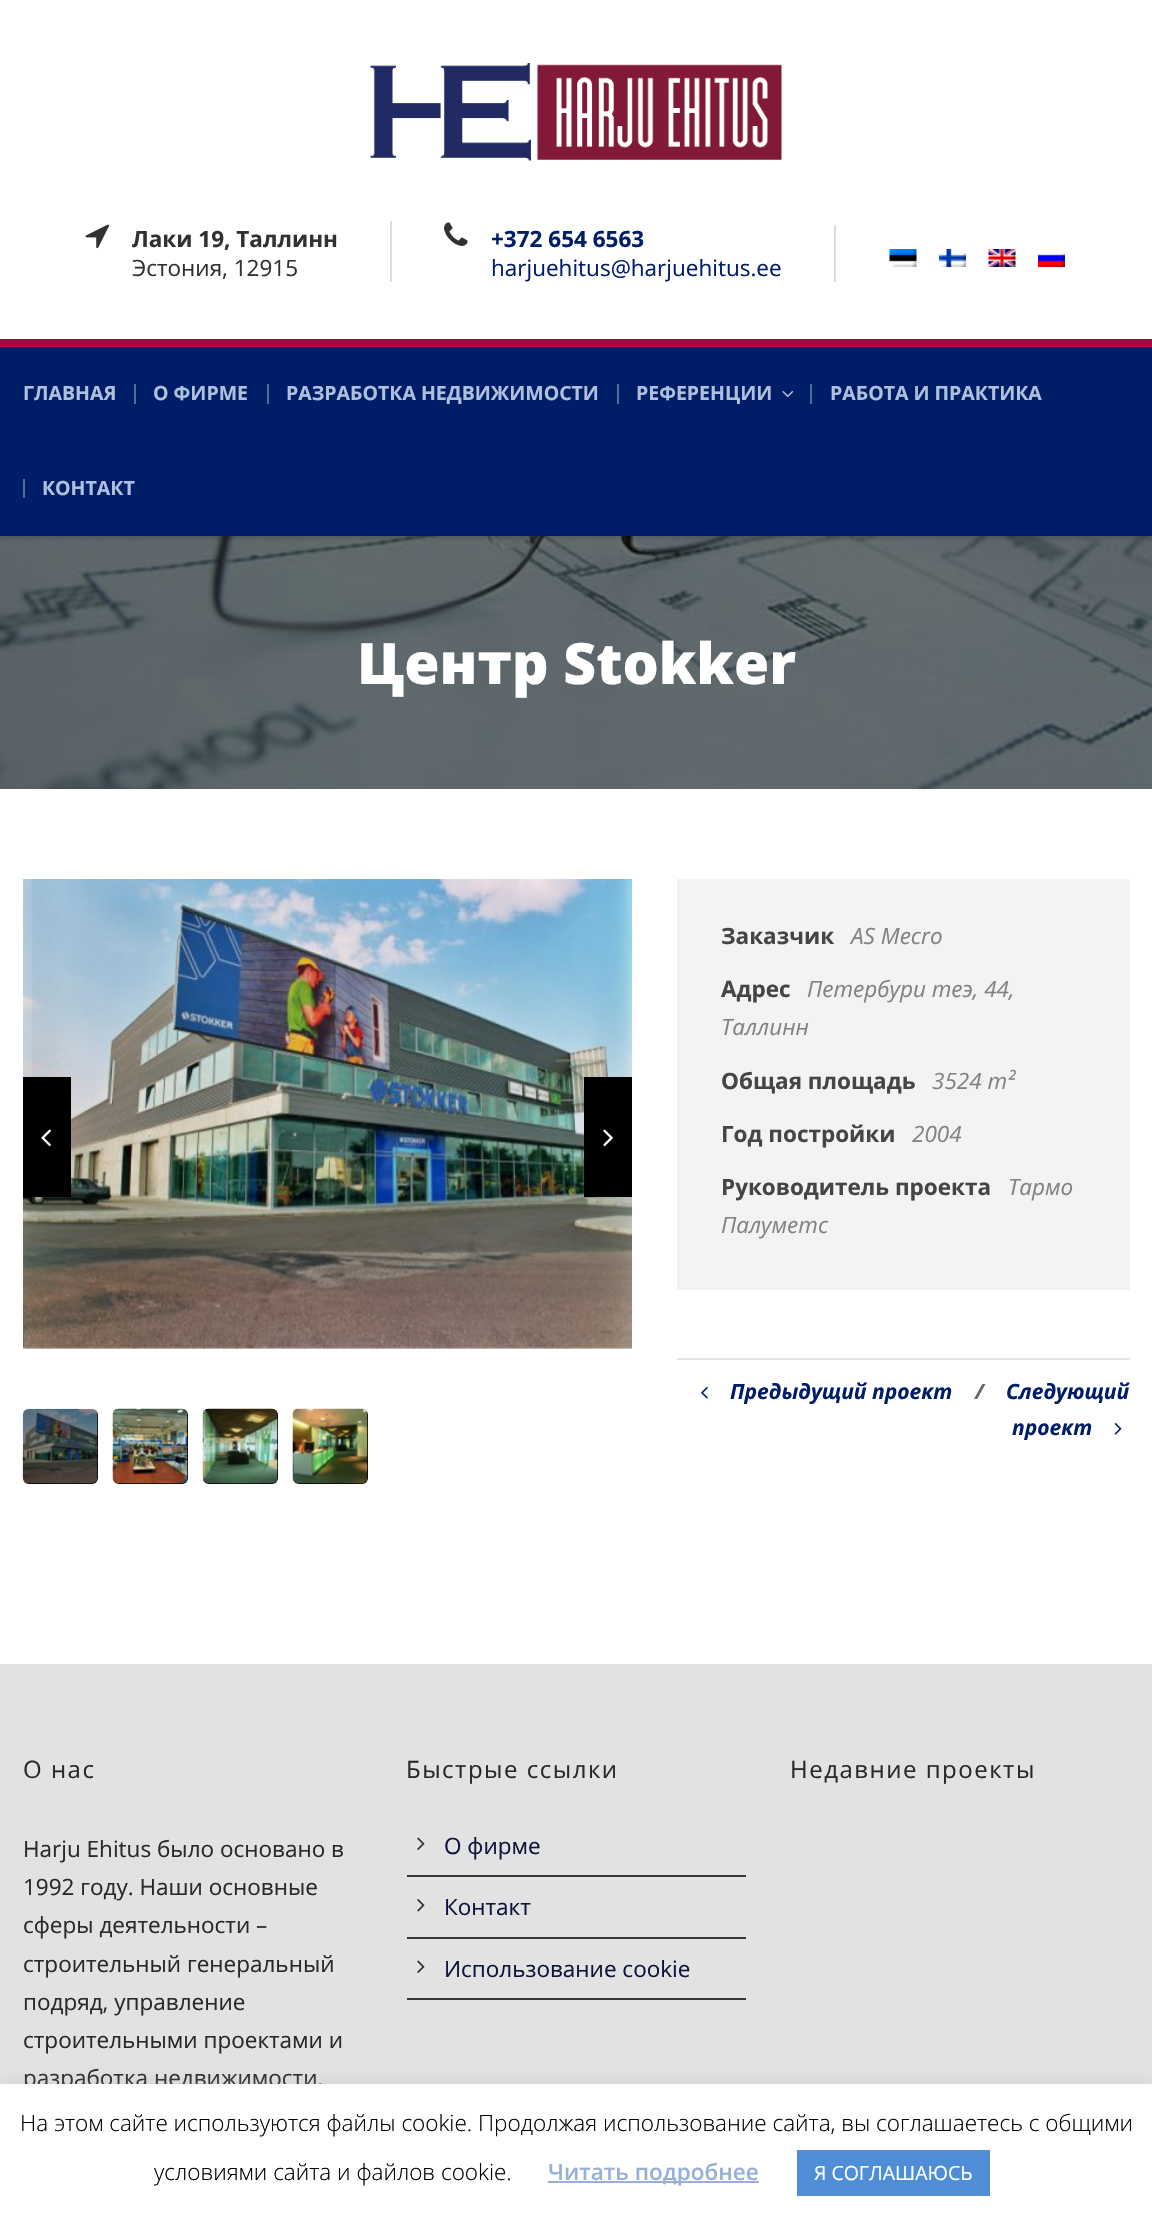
static SkFont makeFont(const char* family, int weight, float size, bool italic = false) {
  SkFontStyle style(weight, SkFontStyle::kNormal_Width,
    italic ? SkFontStyle::kItalic_Slant : SkFontStyle::kUpright_Slant);
  SkFont result(fontMgr->matchFamilyStyle(family, style), size);
  result.setSubpixel(true);
  return result;
}

static void text(SkCanvas* c, const char* s, float x, float y, const SkFont& font, SkColor color) {
  SkPaint ink(SkColor4f::FromColor(color));
  ink.setAntiAlias(true);
  c->drawString(s, x, y, font, ink);
}

static void spacedText(SkCanvas* c, const char* s, float x, float y, const SkFont& font, const SkPaint& ink, float letter, float word) {
  std::vector<SkGlyphID> glyphs(font.countText(s, strlen(s), SkTextEncoding::kUTF8));
  std::vector<float> xs(glyphs.size());
  font.textToGlyphs(s, strlen(s), SkTextEncoding::kUTF8, glyphs);
  font.getXPos(glyphs, xs, x);
  float extra = 0;
  for (size_t i = 0; i < glyphs.size(); i++) {
    xs[i] += extra;
    extra += letter + word * (glyphs[i] == font.unicharToGlyph(' '));
  }
  c->drawTextBlob(SkTextBlob::MakeFromPosHGlyphs(glyphs, xs, y, font), 0, 0, ink);
}

static void box(SkCanvas* c, float l, float t, float r, float b, SkColor color) {
  SkPaint ink(SkColor4f::FromColor(color));
  ink.setAntiAlias(true);
  c->drawRect(SkRect::MakeLTRB(l, t, r, b), ink);
}

static void roundBox(SkCanvas* c, float l, float t, float r, float b, float radius, SkColor color) {
  SkPaint ink(SkColor4f::FromColor(color));
  ink.setAntiAlias(true);
  c->drawRoundRect(SkRect::MakeLTRB(l, t, r, b), radius, radius, ink);
}

static void picture(SkCanvas* c, const char* path, float l, float t, float r, float b) {
  auto image = SkImages::DeferredFromEncodedData(SkData::MakeFromFileName(path));
  c->drawImageRect(image, SkRect::MakeLTRB(l, t, r, b), SkSamplingOptions());
}

void draw(SkCanvas* c) {
  SkPaint paint;
  paint.setAntiAlias(true);
  c->clear(0xffffffff);
  picture(c, "img_01.png", 370, 63, 782, 161);
  picture(c, "img_02.png", 85, 224, 109, 249);
  SkFont face1 = makeFont("Open Sans", 700, 22.5f);
  text(c, "Лаки 19, Таллинн", 132, 247, face1, 0xff313131);
  SkFont face2 = makeFont("Open Sans", 400, 22.5f);
  text(c, "Эстония, 12915", 132, 276, face2, 0xff313131);
  box(c, 390, 221, 392, 282, 0xffdcdcdc);
  picture(c, "img_03.png", 444, 222, 468, 246);
  text(c, "+372 654 6563", 491, 247, face1, 0xff001d68);
  text(c, "harjuehitus@harjuehitus.ee", 491, 276, face2, 0xff001d68);
  box(c, 834, 225, 836, 282, 0xffdcdcdc);
  picture(c, "img_04.png", 889, 249, 917, 267);
  picture(c, "img_05.png", 939, 249, 966, 267);
  picture(c, "img_06.png", 988, 249, 1016, 267);
  picture(c, "img_07.png", 1038, 252, 1065, 267);
  picture(c, "img_09.png", 0, 536, 1152, 789);
  paint.setColor(0x1f000000);
  paint.setMaskFilter(SkMaskFilter::MakeBlur(kNormal_SkBlurStyle, 1.5f));
  c->drawRect(SkRect::MakeLTRB(0, 342, 1152, 539), paint);
  paint.setMaskFilter(nullptr);
  box(c, 0, 347, 1152, 536, 0xff001d68);
  box(c, 0, 339, 1152, 347, 0xffac0040);
  SkFont face3 = makeFont("Open Sans", 700, 19.5f);
  text(c, "ГЛАВНАЯ", 23, 400, face3, 0xffaec0dc);
  box(c, 134, 384, 136, 404, 0xff506c98);
  text(c, "О ФИРМЕ", 153, 400, face3, 0xffaec0dc);
  box(c, 267, 384, 269, 404, 0xff506c98);
  text(c, "РАЗРАБОТКА НЕДВИЖИМОСТИ", 286, 400, face3, 0xffaec0dc);
  box(c, 617, 384, 619, 404, 0xff506c98);
  text(c, "РЕФЕРЕНЦИИ", 636, 400, face3, 0xffaec0dc);
  picture(c, "img_08.png", 782, 390, 794, 398);
  box(c, 810, 384, 812, 404, 0xff506c98);
  text(c, "РАБОТА И ПРАКТИКА", 830, 400, face3, 0xffaec0dc);
  box(c, 23, 479, 25, 498, 0xff506c98);
  text(c, "КОНТАКТ", 42, 495, face3, 0xffaec0dc);
  SkFont face4 = makeFont("Open Sans", 800, 57);
  text(c, "Центр Stokker", 357, 684, face4, 0xffffffff);
  picture(c, "img_10.png", 23, 879, 632, 1349);
  box(c, 23, 1077, 71, 1197, 0xff000000);
  picture(c, "img_11.png", 41, 1129, 51, 1147);
  box(c, 584, 1077, 632, 1197, 0xff000000);
  picture(c, "img_12.png", 603, 1129, 613, 1147);
  roundBox(c, 23, 1409, 98, 1484, 6, 0xff000000);
  picture(c, "img_13.png", 22, 1408, 98, 1484);
  roundBox(c, 113, 1409, 188, 1484, 6, 0xff000000);
  picture(c, "img_14.png", 112, 1408, 188, 1484);
  roundBox(c, 203, 1409, 278, 1484, 6, 0xff000000);
  picture(c, "img_15.png", 202, 1408, 278, 1484);
  roundBox(c, 293, 1409, 368, 1484, 6, 0xff000000);
  picture(c, "img_16.png", 292, 1408, 368, 1484);
  box(c, 677, 879, 1130, 1290, 0xfff3f3f3);
  text(c, "Заказчик", 721, 944, face1, 0xff454545);
  SkFont face5 = makeFont("Open Sans", 400, 22.5f, true);
  text(c, "AS Mecro", 851, 944, face5, 0xff828282);
  text(c, "Адрес", 721, 997, face1, 0xff454545);
  text(c, "Петербури теэ, 44,", 807, 997, face5, 0xff828282);
  text(c, "Таллинн", 721, 1035, face5, 0xff828282);
  text(c, "Общая площадь", 721, 1089, face1, 0xff454545);
  text(c, "3524 m²", 932, 1089, face5, 0xff828282);
  text(c, "Год постройки", 721, 1142, face1, 0xff454545);
  text(c, "2004", 912, 1142, face5, 0xff828282);
  text(c, "Руководитель проекта", 721, 1195, face1, 0xff454545);
  text(c, "Тармо", 1008, 1195, face5, 0xff828282);
  text(c, "Палуметс", 721, 1233, face5, 0xff828282);
  box(c, 677, 1358, 1130, 1360, 0xffe5e5e5);
  picture(c, "img_17.png", 701, 1387, 708, 1399);
  SkFont face6 = makeFont("Open Sans", 700, 21, true);
  text(c, "Предыдущий проект", 730, 1399, face6, 0xff001d68);
  text(c, "/", 975, 1399, face6, 0xff666666);
  text(c, "Следующий", 1006, 1399, face6, 0xff001d68);
  text(c, "проект", 1012, 1435, face6, 0xff001d68);
  picture(c, "img_18.png", 1114, 1423, 1122, 1435);
  box(c, 0, 1664, 1152, 2084, 0xffe2e2e2);
  SkFont face7 = makeFont("Open Sans", 400, 24);
  paint.setColor(0xff292929);
  spacedText(c, "О нас", 23, 1778, face7, paint, 1.5f, 0);
  text(c, "Harju Ehitus было основано в", 23, 1857, face2, 0xff292929);
  text(c, "1992 году. Наши основные", 23, 1895, face2, 0xff292929);
  text(c, "сферы деятельности –", 23, 1933, face2, 0xff292929);
  text(c, "строительный генеральный", 23, 1972, face2, 0xff292929);
  text(c, "подряд, управление", 23, 2010, face2, 0xff292929);
  text(c, "строительными проектами и", 23, 2048, face2, 0xff292929);
  text(c, "разработка недвижимости.", 23, 2086, face2, 0xff292929);
  spacedText(c, "Быстрые ссылки", 406, 1778, face7, paint, 1.5f, 0);
  box(c, 407, 1875, 746, 1877, 0xff363636);
  picture(c, "img_19.png", 417, 1837, 425, 1850);
  text(c, "О фирме", 444, 1854, face2, 0xff0e143c);
  box(c, 407, 1937, 746, 1939, 0xff363636);
  picture(c, "img_20.png", 417, 1899, 425, 1912);
  text(c, "Контакт", 444, 1915, face2, 0xff0e143c);
  box(c, 407, 1998, 746, 2000, 0xff363636);
  picture(c, "img_19.png", 417, 1960, 425, 1973);
  text(c, "Использование cookie", 444, 1977, face2, 0xff0e143c);
  spacedText(c, "Недавние проекты", 790, 1778, face7, paint, 1.5f, 0);
  paint.setColor(0x4dacabab);
  paint.setMaskFilter(SkMaskFilter::MakeBlur(kNormal_SkBlurStyle, 7.5f));
  c->drawRect(SkRect::MakeLTRB(0, 2082, 1152, 2220), paint);
  paint.setMaskFilter(nullptr);
  box(c, 0, 2084, 1152, 2221, 0xffffffff);
  SkFont face8 = makeFont("Open Sans", 300, 22.5f);
  text(c, "На этом сайте используются файлы cookie. Продолжая использование сайта, вы соглашаетесь с общими", 20, 2131, face8, 0xff000000);
  text(c, "условиями сайта и файлов cookie.", 154, 2180, face8, 0xff000000);
  box(c, 548, 2181, 759, 2183, 0xff97afdb);
  SkFont face9 = makeFont("Open Sans", 600, 22.5f);
  text(c, "Читать подробнее", 548, 2180, face9, 0xff97afdb);
  box(c, 797, 2150, 990, 2196, 0xff4f8ed6);
  SkFont face10 = makeFont("Open Sans", 400, 19.5f);
  text(c, "Я СОГЛАШАЮСЬ", 814, 2180, face10, 0xffffffff);
}
